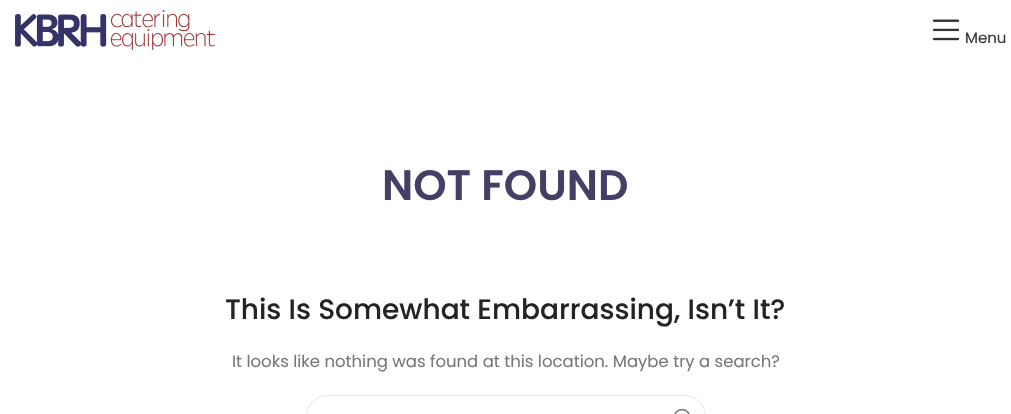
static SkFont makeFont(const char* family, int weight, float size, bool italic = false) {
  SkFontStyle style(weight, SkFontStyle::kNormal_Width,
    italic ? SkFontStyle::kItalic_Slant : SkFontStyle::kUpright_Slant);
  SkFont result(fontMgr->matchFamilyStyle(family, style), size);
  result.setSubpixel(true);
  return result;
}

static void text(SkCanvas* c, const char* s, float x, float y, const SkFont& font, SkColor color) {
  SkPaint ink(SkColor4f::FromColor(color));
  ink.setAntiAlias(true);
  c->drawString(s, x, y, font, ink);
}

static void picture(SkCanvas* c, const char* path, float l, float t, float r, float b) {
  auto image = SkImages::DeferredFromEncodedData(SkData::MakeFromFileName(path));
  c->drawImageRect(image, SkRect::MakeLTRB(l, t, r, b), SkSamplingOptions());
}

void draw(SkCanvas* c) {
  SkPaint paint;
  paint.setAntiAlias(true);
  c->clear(0xffffffff);
  picture(c, "img_01.png", 15, 10, 215, 50);
  picture(c, "img_02.png", 932, 19, 960, 41);
  SkFont face1 = makeFont("Poppins", 400, 15);
  text(c, "Menu", 965, 43, face1, 0xff333333);
  SkFont face2 = makeFont("Poppins", 600, 42.5f);
  text(c, "NOT FOUND", 382, 200, face2, 0xff453f65);
  SkFont face3 = makeFont("Poppins", 500, 28);
  text(c, "This Is Somewhat Embarrassing, Isn’t It?", 225, 319, face3, 0xff242424);
  SkFont face4 = makeFont("Poppins", 400, 16.5f);
  text(c, "It looks like nothing was found at this location. Maybe try a search?", 232, 367, face4, 0xff777777);
  paint.setStyle(SkPaint::kStroke_Style);
  paint.setStrokeWidth(1);
  paint.setColor(0xffe6e6e6);
  c->drawRoundRect(SkRect::MakeLTRB(306.5f, 395.5f, 705.5f, 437.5f), 22.5f, 22.5f, paint);
  picture(c, "img_03.png", 674, 408, 690, 414);
}
